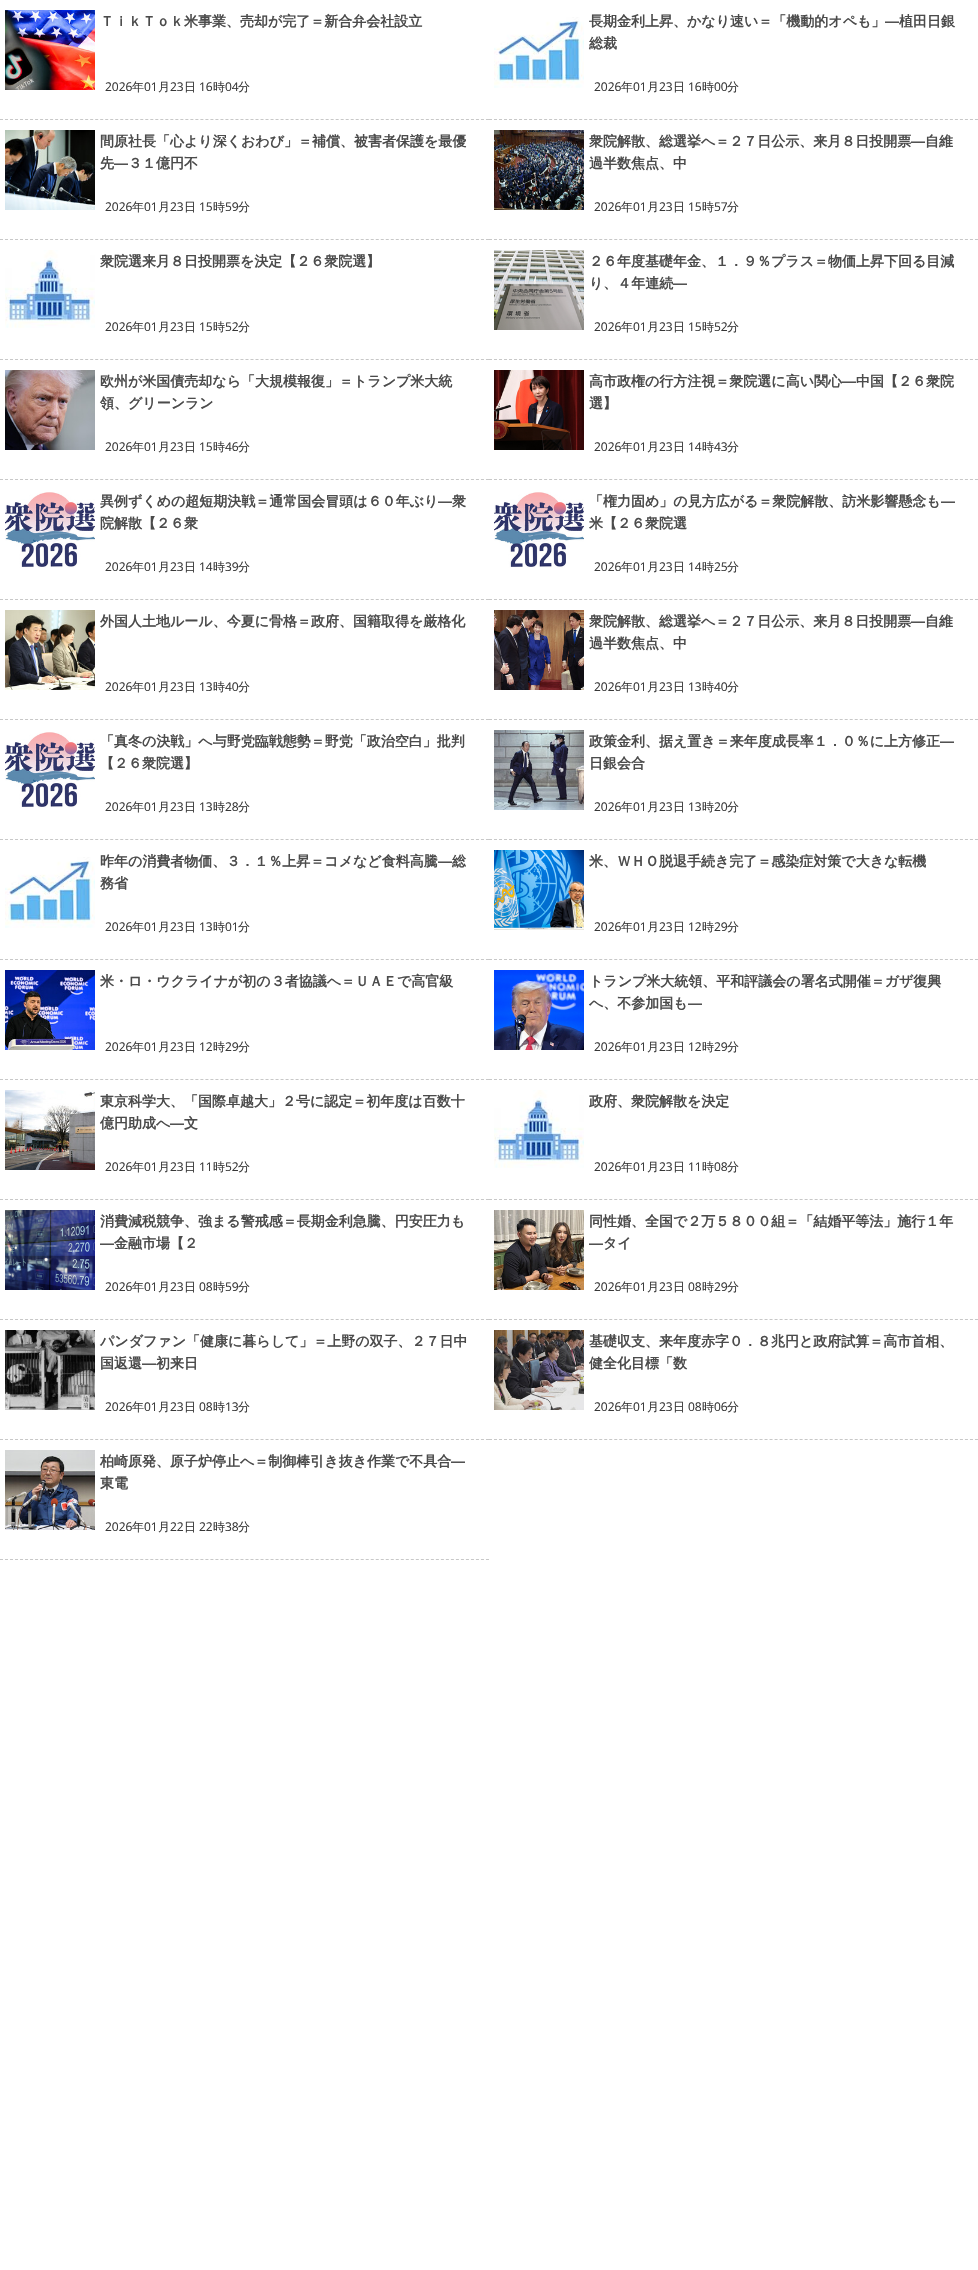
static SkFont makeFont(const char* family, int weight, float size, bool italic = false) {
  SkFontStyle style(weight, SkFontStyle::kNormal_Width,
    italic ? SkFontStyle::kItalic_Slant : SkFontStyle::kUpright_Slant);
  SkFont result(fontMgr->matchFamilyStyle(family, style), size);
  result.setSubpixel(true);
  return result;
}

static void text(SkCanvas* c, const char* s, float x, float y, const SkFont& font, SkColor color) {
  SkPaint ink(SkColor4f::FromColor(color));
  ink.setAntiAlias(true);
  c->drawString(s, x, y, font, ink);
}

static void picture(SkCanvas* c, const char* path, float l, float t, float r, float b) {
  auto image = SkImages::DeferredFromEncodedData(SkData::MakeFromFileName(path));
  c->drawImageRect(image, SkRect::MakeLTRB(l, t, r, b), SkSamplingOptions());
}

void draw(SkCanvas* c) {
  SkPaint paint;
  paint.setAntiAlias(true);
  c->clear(0xffffffff);
  paint.setStyle(SkPaint::kStroke_Style);
  paint.setStrokeWidth(1);
  paint.setColor(0xffc8c8c8);
  paint.setPathEffect(SkDashPathEffect::Make({{3, 2.01f}}, 0));
  c->drawPath(SkPathBuilder().moveTo(0, 119.5f).lineTo(489, 119.5f).detach(), paint);
  paint.setPathEffect(nullptr);
  picture(c, "img_01.png", 5, 10, 95, 90);
  SkFont face1 = makeFont("WenQuanYi Zen Hei", 700, 14);
  text(c, "ＴｉｋＴｏｋ米事業、売却が完了＝新合弁会社設立", 100, 26, face1, 0xff4b4b4b);
  SkFont face2 = makeFont("Open Sans", 400, 12);
  text(c, "2026", 105, 91, face2, 0xff373737);
  SkFont face3 = makeFont("WenQuanYi Zen Hei", 500, 12);
  text(c, "年", 132, 91, face3, 0xff373737);
  text(c, "01", 144, 91, face2, 0xff373737);
  text(c, "月", 158, 91, face3, 0xff373737);
  text(c, "23", 170, 91, face2, 0xff373737);
  text(c, "日", 184, 91, face3, 0xff373737);
  text(c, "16", 199, 91, face2, 0xff373737);
  text(c, "時", 213, 91, face3, 0xff373737);
  text(c, "04", 225, 91, face2, 0xff373737);
  text(c, "分", 238, 91, face3, 0xff373737);
  paint.setPathEffect(SkDashPathEffect::Make({{3, 2.01f}}, 0));
  c->drawPath(SkPathBuilder().moveTo(489, 119.5f).lineTo(978, 119.5f).detach(), paint);
  paint.setPathEffect(nullptr);
  picture(c, "img_02.png", 494, 17, 584, 88);
  text(c, "長期金利上昇、かなり速い＝「機動的オペも」", 589, 26, face1, 0xff4b4b4b);
  SkFont face4 = makeFont("Liberation Sans", 700, 14);
  text(c, "―", 885, 26, face4, 0xff4b4b4b);
  text(c, "植田日銀", 899, 26, face1, 0xff4b4b4b);
  text(c, "総裁", 589, 48, face1, 0xff4b4b4b);
  text(c, "2026", 594, 91, face2, 0xff373737);
  text(c, "年", 621, 91, face3, 0xff373737);
  text(c, "01", 633, 91, face2, 0xff373737);
  text(c, "月", 647, 91, face3, 0xff373737);
  text(c, "23", 659, 91, face2, 0xff373737);
  text(c, "日", 673, 91, face3, 0xff373737);
  text(c, "16", 688, 91, face2, 0xff373737);
  text(c, "時", 702, 91, face3, 0xff373737);
  text(c, "00", 714, 91, face2, 0xff373737);
  text(c, "分", 727, 91, face3, 0xff373737);
  paint.setPathEffect(SkDashPathEffect::Make({{3, 2.01f}}, 0));
  c->drawPath(SkPathBuilder().moveTo(0, 239.5f).lineTo(489, 239.5f).detach(), paint);
  paint.setPathEffect(nullptr);
  picture(c, "img_03.png", 5, 130, 95, 210);
  text(c, "間原社長「心より深くおわび」＝補償、被害者保護を最優", 100, 146, face1, 0xff4b4b4b);
  text(c, "先", 100, 168, face1, 0xff4b4b4b);
  text(c, "―", 114, 168, face4, 0xff4b4b4b);
  text(c, "３１億円不", 128, 168, face1, 0xff4b4b4b);
  text(c, "2026", 105, 211, face2, 0xff373737);
  text(c, "年", 132, 211, face3, 0xff373737);
  text(c, "01", 144, 211, face2, 0xff373737);
  text(c, "月", 158, 211, face3, 0xff373737);
  text(c, "23", 170, 211, face2, 0xff373737);
  text(c, "日", 184, 211, face3, 0xff373737);
  text(c, "15", 199, 211, face2, 0xff373737);
  text(c, "時", 213, 211, face3, 0xff373737);
  text(c, "59", 225, 211, face2, 0xff373737);
  text(c, "分", 238, 211, face3, 0xff373737);
  paint.setPathEffect(SkDashPathEffect::Make({{3, 2.01f}}, 0));
  c->drawPath(SkPathBuilder().moveTo(489, 239.5f).lineTo(978, 239.5f).detach(), paint);
  paint.setPathEffect(nullptr);
  picture(c, "img_04.png", 494, 130, 584, 210);
  text(c, "衆院解散、総選挙へ＝２７日公示、来月８日投開票", 589, 146, face1, 0xff4b4b4b);
  text(c, "―", 911, 146, face4, 0xff4b4b4b);
  text(c, "自維", 925, 146, face1, 0xff4b4b4b);
  text(c, "過半数焦点、中", 589, 168, face1, 0xff4b4b4b);
  text(c, "2026", 594, 211, face2, 0xff373737);
  text(c, "年", 621, 211, face3, 0xff373737);
  text(c, "01", 633, 211, face2, 0xff373737);
  text(c, "月", 647, 211, face3, 0xff373737);
  text(c, "23", 659, 211, face2, 0xff373737);
  text(c, "日", 673, 211, face3, 0xff373737);
  text(c, "15", 688, 211, face2, 0xff373737);
  text(c, "時", 702, 211, face3, 0xff373737);
  text(c, "57", 714, 211, face2, 0xff373737);
  text(c, "分", 727, 211, face3, 0xff373737);
  paint.setPathEffect(SkDashPathEffect::Make({{3, 2.01f}}, 0));
  c->drawPath(SkPathBuilder().moveTo(0, 359.5f).lineTo(489, 359.5f).detach(), paint);
  paint.setPathEffect(nullptr);
  picture(c, "img_05.png", 5, 250, 95, 328);
  text(c, "衆院選来月８日投開票を決定【２６衆院選】", 100, 266, face1, 0xff4b4b4b);
  text(c, "2026", 105, 331, face2, 0xff373737);
  text(c, "年", 132, 331, face3, 0xff373737);
  text(c, "01", 144, 331, face2, 0xff373737);
  text(c, "月", 158, 331, face3, 0xff373737);
  text(c, "23", 170, 331, face2, 0xff373737);
  text(c, "日", 184, 331, face3, 0xff373737);
  text(c, "15", 199, 331, face2, 0xff373737);
  text(c, "時", 213, 331, face3, 0xff373737);
  text(c, "52", 225, 331, face2, 0xff373737);
  text(c, "分", 238, 331, face3, 0xff373737);
  paint.setPathEffect(SkDashPathEffect::Make({{3, 2.01f}}, 0));
  c->drawPath(SkPathBuilder().moveTo(489, 359.5f).lineTo(978, 359.5f).detach(), paint);
  paint.setPathEffect(nullptr);
  picture(c, "img_06.png", 494, 250, 584, 330);
  text(c, "２６年度基礎年金、１．９％プラス＝物価上昇下回る目減", 589, 266, face1, 0xff4b4b4b);
  text(c, "り、４年連続", 589, 288, face1, 0xff4b4b4b);
  text(c, "―", 673, 288, face4, 0xff4b4b4b);
  text(c, "2026", 594, 331, face2, 0xff373737);
  text(c, "年", 621, 331, face3, 0xff373737);
  text(c, "01", 633, 331, face2, 0xff373737);
  text(c, "月", 647, 331, face3, 0xff373737);
  text(c, "23", 659, 331, face2, 0xff373737);
  text(c, "日", 673, 331, face3, 0xff373737);
  text(c, "15", 688, 331, face2, 0xff373737);
  text(c, "時", 702, 331, face3, 0xff373737);
  text(c, "52", 714, 331, face2, 0xff373737);
  text(c, "分", 727, 331, face3, 0xff373737);
  paint.setPathEffect(SkDashPathEffect::Make({{3, 2.01f}}, 0));
  c->drawPath(SkPathBuilder().moveTo(0, 479.5f).lineTo(489, 479.5f).detach(), paint);
  paint.setPathEffect(nullptr);
  picture(c, "img_07.png", 5, 370, 95, 450);
  text(c, "欧州が米国債売却なら「大規模報復」＝トランプ米大統", 100, 386, face1, 0xff4b4b4b);
  text(c, "領、グリーンラン", 100, 408, face1, 0xff4b4b4b);
  text(c, "2026", 105, 451, face2, 0xff373737);
  text(c, "年", 132, 451, face3, 0xff373737);
  text(c, "01", 144, 451, face2, 0xff373737);
  text(c, "月", 158, 451, face3, 0xff373737);
  text(c, "23", 170, 451, face2, 0xff373737);
  text(c, "日", 184, 451, face3, 0xff373737);
  text(c, "15", 199, 451, face2, 0xff373737);
  text(c, "時", 213, 451, face3, 0xff373737);
  text(c, "46", 225, 451, face2, 0xff373737);
  text(c, "分", 238, 451, face3, 0xff373737);
  paint.setPathEffect(SkDashPathEffect::Make({{3, 2.01f}}, 0));
  c->drawPath(SkPathBuilder().moveTo(489, 479.5f).lineTo(978, 479.5f).detach(), paint);
  paint.setPathEffect(nullptr);
  picture(c, "img_08.png", 494, 370, 584, 450);
  text(c, "高市政権の行方注視＝衆院選に高い関心", 589, 386, face1, 0xff4b4b4b);
  text(c, "―", 842, 386, face4, 0xff4b4b4b);
  text(c, "中国【２６衆院", 856, 386, face1, 0xff4b4b4b);
  text(c, "選】", 589, 408, face1, 0xff4b4b4b);
  text(c, "2026", 594, 451, face2, 0xff373737);
  text(c, "年", 621, 451, face3, 0xff373737);
  text(c, "01", 633, 451, face2, 0xff373737);
  text(c, "月", 647, 451, face3, 0xff373737);
  text(c, "23", 659, 451, face2, 0xff373737);
  text(c, "日", 673, 451, face3, 0xff373737);
  text(c, "14", 688, 451, face2, 0xff373737);
  text(c, "時", 702, 451, face3, 0xff373737);
  text(c, "43", 714, 451, face2, 0xff373737);
  text(c, "分", 727, 451, face3, 0xff373737);
  paint.setPathEffect(SkDashPathEffect::Make({{3, 2.01f}}, 0));
  c->drawPath(SkPathBuilder().moveTo(0, 599.5f).lineTo(489, 599.5f).detach(), paint);
  paint.setPathEffect(nullptr);
  picture(c, "img_09.png", 5, 492, 95, 568);
  text(c, "異例ずくめの超短期決戦＝通常国会冒頭は６０年ぶり", 100, 506, face1, 0xff4b4b4b);
  text(c, "―", 438, 506, face4, 0xff4b4b4b);
  text(c, "衆", 452, 506, face1, 0xff4b4b4b);
  text(c, "院解散【２６衆", 100, 528, face1, 0xff4b4b4b);
  text(c, "2026", 105, 571, face2, 0xff373737);
  text(c, "年", 132, 571, face3, 0xff373737);
  text(c, "01", 144, 571, face2, 0xff373737);
  text(c, "月", 158, 571, face3, 0xff373737);
  text(c, "23", 170, 571, face2, 0xff373737);
  text(c, "日", 184, 571, face3, 0xff373737);
  text(c, "14", 199, 571, face2, 0xff373737);
  text(c, "時", 213, 571, face3, 0xff373737);
  text(c, "39", 225, 571, face2, 0xff373737);
  text(c, "分", 238, 571, face3, 0xff373737);
  paint.setPathEffect(SkDashPathEffect::Make({{3, 2.01f}}, 0));
  c->drawPath(SkPathBuilder().moveTo(489, 599.5f).lineTo(978, 599.5f).detach(), paint);
  paint.setPathEffect(nullptr);
  picture(c, "img_09.png", 494, 492, 584, 568);
  text(c, "「権力固め」の見方広がる＝衆院解散、訪米影響懸念も", 589, 506, face1, 0xff4b4b4b);
  text(c, "―", 941, 506, face4, 0xff4b4b4b);
  text(c, "米【２６衆院選", 589, 528, face1, 0xff4b4b4b);
  text(c, "2026", 594, 571, face2, 0xff373737);
  text(c, "年", 621, 571, face3, 0xff373737);
  text(c, "01", 633, 571, face2, 0xff373737);
  text(c, "月", 647, 571, face3, 0xff373737);
  text(c, "23", 659, 571, face2, 0xff373737);
  text(c, "日", 673, 571, face3, 0xff373737);
  text(c, "14", 688, 571, face2, 0xff373737);
  text(c, "時", 702, 571, face3, 0xff373737);
  text(c, "25", 714, 571, face2, 0xff373737);
  text(c, "分", 727, 571, face3, 0xff373737);
  paint.setPathEffect(SkDashPathEffect::Make({{3, 2.01f}}, 0));
  c->drawPath(SkPathBuilder().moveTo(0, 719.5f).lineTo(489, 719.5f).detach(), paint);
  paint.setPathEffect(nullptr);
  picture(c, "img_10.png", 5, 610, 95, 690);
  text(c, "外国人土地ルール、今夏に骨格＝政府、国籍取得を厳格化", 100, 626, face1, 0xff4b4b4b);
  text(c, "2026", 105, 691, face2, 0xff373737);
  text(c, "年", 132, 691, face3, 0xff373737);
  text(c, "01", 144, 691, face2, 0xff373737);
  text(c, "月", 158, 691, face3, 0xff373737);
  text(c, "23", 170, 691, face2, 0xff373737);
  text(c, "日", 184, 691, face3, 0xff373737);
  text(c, "13", 199, 691, face2, 0xff373737);
  text(c, "時", 213, 691, face3, 0xff373737);
  text(c, "40", 225, 691, face2, 0xff373737);
  text(c, "分", 238, 691, face3, 0xff373737);
  paint.setPathEffect(SkDashPathEffect::Make({{3, 2.01f}}, 0));
  c->drawPath(SkPathBuilder().moveTo(489, 719.5f).lineTo(978, 719.5f).detach(), paint);
  paint.setPathEffect(nullptr);
  picture(c, "img_11.png", 494, 610, 584, 690);
  text(c, "衆院解散、総選挙へ＝２７日公示、来月８日投開票", 589, 626, face1, 0xff4b4b4b);
  text(c, "―", 911, 626, face4, 0xff4b4b4b);
  text(c, "自維", 925, 626, face1, 0xff4b4b4b);
  text(c, "過半数焦点、中", 589, 648, face1, 0xff4b4b4b);
  text(c, "2026", 594, 691, face2, 0xff373737);
  text(c, "年", 621, 691, face3, 0xff373737);
  text(c, "01", 633, 691, face2, 0xff373737);
  text(c, "月", 647, 691, face3, 0xff373737);
  text(c, "23", 659, 691, face2, 0xff373737);
  text(c, "日", 673, 691, face3, 0xff373737);
  text(c, "13", 688, 691, face2, 0xff373737);
  text(c, "時", 702, 691, face3, 0xff373737);
  text(c, "40", 714, 691, face2, 0xff373737);
  text(c, "分", 727, 691, face3, 0xff373737);
  paint.setPathEffect(SkDashPathEffect::Make({{3, 2.01f}}, 0));
  c->drawPath(SkPathBuilder().moveTo(0, 839.5f).lineTo(489, 839.5f).detach(), paint);
  paint.setPathEffect(nullptr);
  picture(c, "img_12.png", 5, 732, 95, 808);
  text(c, "「真冬の決戦」へ与野党臨戦態勢＝野党「政治空白」批判", 100, 746, face1, 0xff4b4b4b);
  text(c, "【２６衆院選】", 100, 768, face1, 0xff4b4b4b);
  text(c, "2026", 105, 811, face2, 0xff373737);
  text(c, "年", 132, 811, face3, 0xff373737);
  text(c, "01", 144, 811, face2, 0xff373737);
  text(c, "月", 158, 811, face3, 0xff373737);
  text(c, "23", 170, 811, face2, 0xff373737);
  text(c, "日", 184, 811, face3, 0xff373737);
  text(c, "13", 199, 811, face2, 0xff373737);
  text(c, "時", 213, 811, face3, 0xff373737);
  text(c, "28", 225, 811, face2, 0xff373737);
  text(c, "分", 238, 811, face3, 0xff373737);
  paint.setPathEffect(SkDashPathEffect::Make({{3, 2.01f}}, 0));
  c->drawPath(SkPathBuilder().moveTo(489, 839.5f).lineTo(978, 839.5f).detach(), paint);
  paint.setPathEffect(nullptr);
  picture(c, "img_13.png", 494, 730, 584, 810);
  text(c, "政策金利、据え置き＝来年度成長率１．０％に上方修正", 589, 746, face1, 0xff4b4b4b);
  text(c, "―", 940, 746, face4, 0xff4b4b4b);
  text(c, "日銀会合", 589, 768, face1, 0xff4b4b4b);
  text(c, "2026", 594, 811, face2, 0xff373737);
  text(c, "年", 621, 811, face3, 0xff373737);
  text(c, "01", 633, 811, face2, 0xff373737);
  text(c, "月", 647, 811, face3, 0xff373737);
  text(c, "23", 659, 811, face2, 0xff373737);
  text(c, "日", 673, 811, face3, 0xff373737);
  text(c, "13", 688, 811, face2, 0xff373737);
  text(c, "時", 702, 811, face3, 0xff373737);
  text(c, "20", 714, 811, face2, 0xff373737);
  text(c, "分", 727, 811, face3, 0xff373737);
  paint.setPathEffect(SkDashPathEffect::Make({{3, 2.01f}}, 0));
  c->drawPath(SkPathBuilder().moveTo(0, 959.5f).lineTo(489, 959.5f).detach(), paint);
  paint.setPathEffect(nullptr);
  picture(c, "img_14.png", 5, 857, 95, 928);
  text(c, "昨年の消費者物価、３．１％上昇＝コメなど食料高騰", 100, 866, face1, 0xff4b4b4b);
  text(c, "―", 438, 866, face4, 0xff4b4b4b);
  text(c, "総", 452, 866, face1, 0xff4b4b4b);
  text(c, "務省", 100, 888, face1, 0xff4b4b4b);
  text(c, "2026", 105, 931, face2, 0xff373737);
  text(c, "年", 132, 931, face3, 0xff373737);
  text(c, "01", 144, 931, face2, 0xff373737);
  text(c, "月", 158, 931, face3, 0xff373737);
  text(c, "23", 170, 931, face2, 0xff373737);
  text(c, "日", 184, 931, face3, 0xff373737);
  text(c, "13", 199, 931, face2, 0xff373737);
  text(c, "時", 213, 931, face3, 0xff373737);
  text(c, "01", 225, 931, face2, 0xff373737);
  text(c, "分", 238, 931, face3, 0xff373737);
  paint.setPathEffect(SkDashPathEffect::Make({{3, 2.01f}}, 0));
  c->drawPath(SkPathBuilder().moveTo(489, 959.5f).lineTo(978, 959.5f).detach(), paint);
  paint.setPathEffect(nullptr);
  picture(c, "img_15.png", 494, 850, 584, 930);
  text(c, "米、ＷＨＯ脱退手続き完了＝感染症対策で大きな転機", 589, 866, face1, 0xff4b4b4b);
  text(c, "2026", 594, 931, face2, 0xff373737);
  text(c, "年", 621, 931, face3, 0xff373737);
  text(c, "01", 633, 931, face2, 0xff373737);
  text(c, "月", 647, 931, face3, 0xff373737);
  text(c, "23", 659, 931, face2, 0xff373737);
  text(c, "日", 673, 931, face3, 0xff373737);
  text(c, "12", 688, 931, face2, 0xff373737);
  text(c, "時", 702, 931, face3, 0xff373737);
  text(c, "29", 714, 931, face2, 0xff373737);
  text(c, "分", 727, 931, face3, 0xff373737);
  paint.setPathEffect(SkDashPathEffect::Make({{3, 2.01f}}, 0));
  c->drawPath(SkPathBuilder().moveTo(0, 1079.5f).lineTo(489, 1079.5f).detach(), paint);
  paint.setPathEffect(nullptr);
  picture(c, "img_16.png", 5, 970, 95, 1050);
  text(c, "米・ロ・ウクライナが初の３者協議へ＝ＵＡＥで高官級", 100, 986, face1, 0xff4b4b4b);
  text(c, "2026", 105, 1051, face2, 0xff373737);
  text(c, "年", 132, 1051, face3, 0xff373737);
  text(c, "01", 144, 1051, face2, 0xff373737);
  text(c, "月", 158, 1051, face3, 0xff373737);
  text(c, "23", 170, 1051, face2, 0xff373737);
  text(c, "日", 184, 1051, face3, 0xff373737);
  text(c, "12", 199, 1051, face2, 0xff373737);
  text(c, "時", 213, 1051, face3, 0xff373737);
  text(c, "29", 225, 1051, face2, 0xff373737);
  text(c, "分", 238, 1051, face3, 0xff373737);
  paint.setPathEffect(SkDashPathEffect::Make({{3, 2.01f}}, 0));
  c->drawPath(SkPathBuilder().moveTo(489, 1079.5f).lineTo(978, 1079.5f).detach(), paint);
  paint.setPathEffect(nullptr);
  picture(c, "img_17.png", 494, 970, 584, 1050);
  text(c, "トランプ米大統領、平和評議会の署名式開催＝ガザ復興", 589, 986, face1, 0xff4b4b4b);
  text(c, "へ、不参加国も", 589, 1008, face1, 0xff4b4b4b);
  text(c, "―", 688, 1008, face4, 0xff4b4b4b);
  text(c, "2026", 594, 1051, face2, 0xff373737);
  text(c, "年", 621, 1051, face3, 0xff373737);
  text(c, "01", 633, 1051, face2, 0xff373737);
  text(c, "月", 647, 1051, face3, 0xff373737);
  text(c, "23", 659, 1051, face2, 0xff373737);
  text(c, "日", 673, 1051, face3, 0xff373737);
  text(c, "12", 688, 1051, face2, 0xff373737);
  text(c, "時", 702, 1051, face3, 0xff373737);
  text(c, "29", 714, 1051, face2, 0xff373737);
  text(c, "分", 727, 1051, face3, 0xff373737);
  paint.setPathEffect(SkDashPathEffect::Make({{3, 2.01f}}, 0));
  c->drawPath(SkPathBuilder().moveTo(0, 1199.5f).lineTo(489, 1199.5f).detach(), paint);
  paint.setPathEffect(nullptr);
  picture(c, "img_18.png", 5, 1090, 95, 1170);
  text(c, "東京科学大、「国際卓越大」２号に認定＝初年度は百数十", 100, 1106, face1, 0xff4b4b4b);
  text(c, "億円助成へ", 100, 1128, face1, 0xff4b4b4b);
  text(c, "―", 170, 1128, face4, 0xff4b4b4b);
  text(c, "文", 184, 1128, face1, 0xff4b4b4b);
  text(c, "2026", 105, 1171, face2, 0xff373737);
  text(c, "年", 132, 1171, face3, 0xff373737);
  text(c, "01", 144, 1171, face2, 0xff373737);
  text(c, "月", 158, 1171, face3, 0xff373737);
  text(c, "23", 170, 1171, face2, 0xff373737);
  text(c, "日", 184, 1171, face3, 0xff373737);
  text(c, "11", 199, 1171, face2, 0xff373737);
  text(c, "時", 213, 1171, face3, 0xff373737);
  text(c, "52", 225, 1171, face2, 0xff373737);
  text(c, "分", 238, 1171, face3, 0xff373737);
  paint.setPathEffect(SkDashPathEffect::Make({{3, 2.01f}}, 0));
  c->drawPath(SkPathBuilder().moveTo(489, 1199.5f).lineTo(978, 1199.5f).detach(), paint);
  paint.setPathEffect(nullptr);
  picture(c, "img_19.png", 494, 1090, 584, 1168);
  text(c, "政府、衆院解散を決定", 589, 1106, face1, 0xff4b4b4b);
  text(c, "2026", 594, 1171, face2, 0xff373737);
  text(c, "年", 621, 1171, face3, 0xff373737);
  text(c, "01", 633, 1171, face2, 0xff373737);
  text(c, "月", 647, 1171, face3, 0xff373737);
  text(c, "23", 659, 1171, face2, 0xff373737);
  text(c, "日", 673, 1171, face3, 0xff373737);
  text(c, "11", 688, 1171, face2, 0xff373737);
  text(c, "時", 702, 1171, face3, 0xff373737);
  text(c, "08", 714, 1171, face2, 0xff373737);
  text(c, "分", 727, 1171, face3, 0xff373737);
  paint.setPathEffect(SkDashPathEffect::Make({{3, 2.01f}}, 0));
  c->drawPath(SkPathBuilder().moveTo(0, 1319.5f).lineTo(489, 1319.5f).detach(), paint);
  paint.setPathEffect(nullptr);
  picture(c, "img_20.png", 5, 1210, 95, 1290);
  text(c, "消費減税競争、強まる警戒感＝長期金利急騰、円安圧力も", 100, 1226, face1, 0xff4b4b4b);
  text(c, "―", 100, 1248, face4, 0xff4b4b4b);
  text(c, "金融市場【２", 114, 1248, face1, 0xff4b4b4b);
  text(c, "2026", 105, 1291, face2, 0xff373737);
  text(c, "年", 132, 1291, face3, 0xff373737);
  text(c, "01", 144, 1291, face2, 0xff373737);
  text(c, "月", 158, 1291, face3, 0xff373737);
  text(c, "23", 170, 1291, face2, 0xff373737);
  text(c, "日", 184, 1291, face3, 0xff373737);
  text(c, "08", 199, 1291, face2, 0xff373737);
  text(c, "時", 213, 1291, face3, 0xff373737);
  text(c, "59", 225, 1291, face2, 0xff373737);
  text(c, "分", 238, 1291, face3, 0xff373737);
  paint.setPathEffect(SkDashPathEffect::Make({{3, 2.01f}}, 0));
  c->drawPath(SkPathBuilder().moveTo(489, 1319.5f).lineTo(978, 1319.5f).detach(), paint);
  paint.setPathEffect(nullptr);
  picture(c, "img_21.png", 494, 1210, 584, 1290);
  text(c, "同性婚、全国で２万５８００組＝「結婚平等法」施行１年", 589, 1226, face1, 0xff4b4b4b);
  text(c, "―", 589, 1248, face4, 0xff4b4b4b);
  text(c, "タイ", 603, 1248, face1, 0xff4b4b4b);
  text(c, "2026", 594, 1291, face2, 0xff373737);
  text(c, "年", 621, 1291, face3, 0xff373737);
  text(c, "01", 633, 1291, face2, 0xff373737);
  text(c, "月", 647, 1291, face3, 0xff373737);
  text(c, "23", 659, 1291, face2, 0xff373737);
  text(c, "日", 673, 1291, face3, 0xff373737);
  text(c, "08", 688, 1291, face2, 0xff373737);
  text(c, "時", 702, 1291, face3, 0xff373737);
  text(c, "29", 714, 1291, face2, 0xff373737);
  text(c, "分", 727, 1291, face3, 0xff373737);
  paint.setPathEffect(SkDashPathEffect::Make({{3, 2.01f}}, 0));
  c->drawPath(SkPathBuilder().moveTo(0, 1439.5f).lineTo(489, 1439.5f).detach(), paint);
  paint.setPathEffect(nullptr);
  picture(c, "img_22.png", 5, 1330, 95, 1410);
  text(c, "パンダファン「健康に暮らして」＝上野の双子、２７日中", 100, 1346, face1, 0xff4b4b4b);
  text(c, "国返還", 100, 1368, face1, 0xff4b4b4b);
  text(c, "―", 142, 1368, face4, 0xff4b4b4b);
  text(c, "初来日", 156, 1368, face1, 0xff4b4b4b);
  text(c, "2026", 105, 1411, face2, 0xff373737);
  text(c, "年", 132, 1411, face3, 0xff373737);
  text(c, "01", 144, 1411, face2, 0xff373737);
  text(c, "月", 158, 1411, face3, 0xff373737);
  text(c, "23", 170, 1411, face2, 0xff373737);
  text(c, "日", 184, 1411, face3, 0xff373737);
  text(c, "08", 199, 1411, face2, 0xff373737);
  text(c, "時", 213, 1411, face3, 0xff373737);
  text(c, "13", 225, 1411, face2, 0xff373737);
  text(c, "分", 238, 1411, face3, 0xff373737);
  paint.setPathEffect(SkDashPathEffect::Make({{3, 2.01f}}, 0));
  c->drawPath(SkPathBuilder().moveTo(489, 1439.5f).lineTo(978, 1439.5f).detach(), paint);
  paint.setPathEffect(nullptr);
  picture(c, "img_23.png", 494, 1330, 584, 1410);
  text(c, "基礎収支、来年度赤字０．８兆円と政府試算＝高市首相、", 589, 1346, face1, 0xff4b4b4b);
  text(c, "健全化目標「数", 589, 1368, face1, 0xff4b4b4b);
  text(c, "2026", 594, 1411, face2, 0xff373737);
  text(c, "年", 621, 1411, face3, 0xff373737);
  text(c, "01", 633, 1411, face2, 0xff373737);
  text(c, "月", 647, 1411, face3, 0xff373737);
  text(c, "23", 659, 1411, face2, 0xff373737);
  text(c, "日", 673, 1411, face3, 0xff373737);
  text(c, "08", 688, 1411, face2, 0xff373737);
  text(c, "時", 702, 1411, face3, 0xff373737);
  text(c, "06", 714, 1411, face2, 0xff373737);
  text(c, "分", 727, 1411, face3, 0xff373737);
  paint.setPathEffect(SkDashPathEffect::Make({{3, 2.01f}}, 0));
  c->drawPath(SkPathBuilder().moveTo(0, 1559.5f).lineTo(489, 1559.5f).detach(), paint);
  paint.setPathEffect(nullptr);
  picture(c, "img_24.png", 5, 1450, 95, 1530);
  text(c, "柏崎原発、原子炉停止へ＝制御棒引き抜き作業で不具合", 100, 1466, face1, 0xff4b4b4b);
  text(c, "―", 451, 1466, face4, 0xff4b4b4b);
  text(c, "東電", 100, 1488, face1, 0xff4b4b4b);
  text(c, "2026", 105, 1531, face2, 0xff373737);
  text(c, "年", 132, 1531, face3, 0xff373737);
  text(c, "01", 144, 1531, face2, 0xff373737);
  text(c, "月", 158, 1531, face3, 0xff373737);
  text(c, "22", 170, 1531, face2, 0xff373737);
  text(c, "日", 184, 1531, face3, 0xff373737);
  text(c, "22", 199, 1531, face2, 0xff373737);
  text(c, "時", 213, 1531, face3, 0xff373737);
  text(c, "38", 225, 1531, face2, 0xff373737);
  text(c, "分", 238, 1531, face3, 0xff373737);
}
